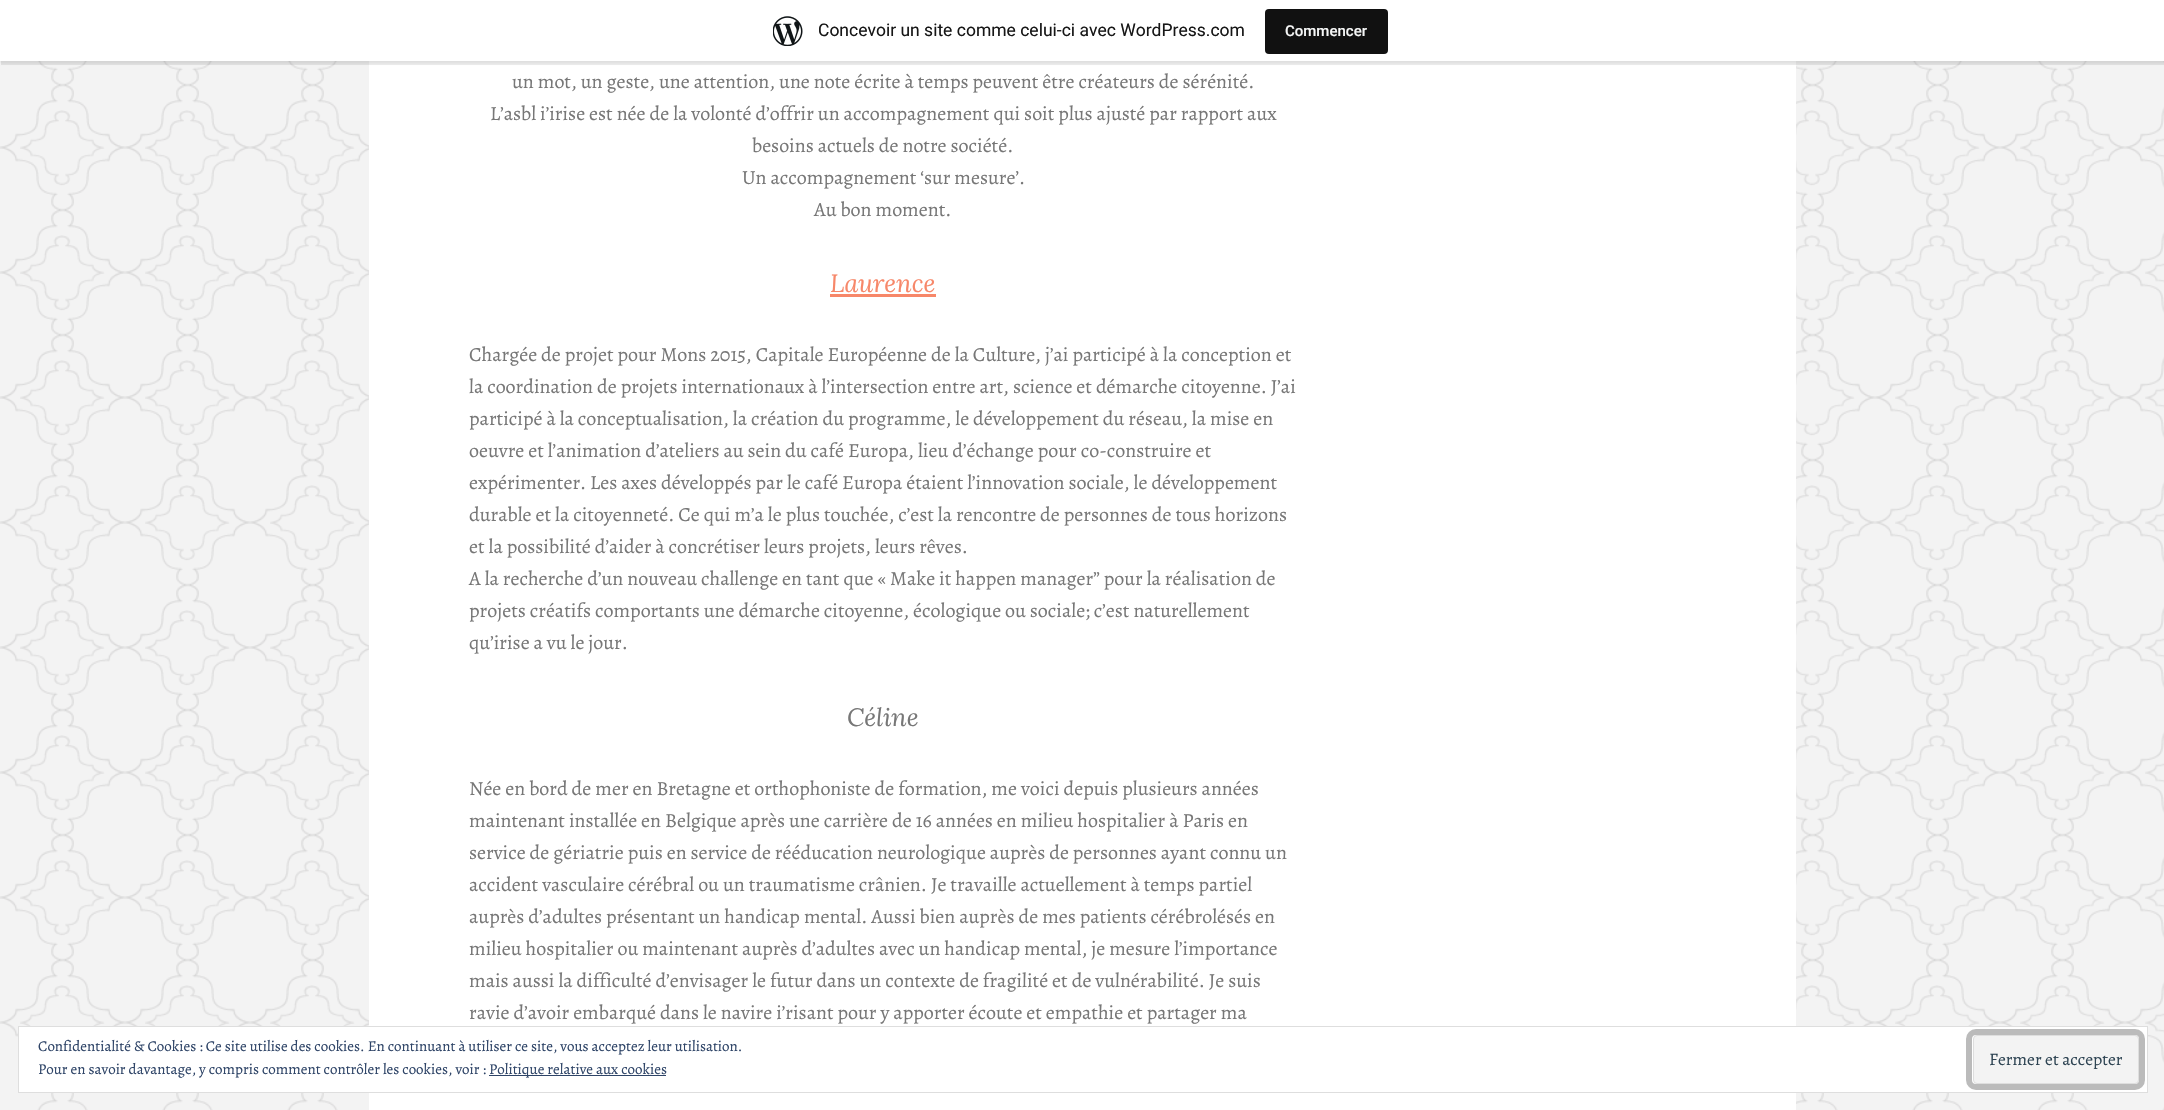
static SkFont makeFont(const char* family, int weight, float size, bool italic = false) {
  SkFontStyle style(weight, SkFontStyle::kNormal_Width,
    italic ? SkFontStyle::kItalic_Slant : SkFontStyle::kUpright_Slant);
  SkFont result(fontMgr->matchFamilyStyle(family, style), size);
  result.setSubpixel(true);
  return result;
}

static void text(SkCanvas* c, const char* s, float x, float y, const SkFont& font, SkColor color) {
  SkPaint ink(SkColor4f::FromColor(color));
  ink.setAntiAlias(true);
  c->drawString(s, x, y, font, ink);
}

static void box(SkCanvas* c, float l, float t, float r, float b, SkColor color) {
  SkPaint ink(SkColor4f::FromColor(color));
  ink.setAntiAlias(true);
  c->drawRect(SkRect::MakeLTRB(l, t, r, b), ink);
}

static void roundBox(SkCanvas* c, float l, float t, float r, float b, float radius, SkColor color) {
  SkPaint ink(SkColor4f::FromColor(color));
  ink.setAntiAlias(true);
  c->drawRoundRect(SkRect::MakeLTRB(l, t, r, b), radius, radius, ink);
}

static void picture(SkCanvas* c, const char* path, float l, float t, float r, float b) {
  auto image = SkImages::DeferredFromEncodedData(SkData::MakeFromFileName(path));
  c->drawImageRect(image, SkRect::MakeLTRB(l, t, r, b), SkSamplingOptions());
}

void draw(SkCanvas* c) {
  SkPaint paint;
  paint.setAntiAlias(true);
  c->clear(0xfff3f3f3);
  picture(c, "img_01.png", 0, 61, 2164, 1110);
  box(c, 369, 61, 1796, 1110, 0xffffffff);
  paint.setColor(0x0d000000);
  paint.setMaskFilter(SkMaskFilter::MakeBlur(kNormal_SkBlurStyle, 1));
  c->drawRect(SkRect::MakeLTRB(0, 1, 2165, 63), paint);
  paint.setMaskFilter(nullptr);
  paint.setColor(0x14000000);
  c->drawPath(SkPathBuilder().moveTo(1, 61).lineTo(1, 65).lineTo(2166, 65).lineTo(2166, 4).lineTo(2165, 4).lineTo(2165, 61).close().detach(), paint);
  box(c, 0, 0, 2164, 61, 0xffffffff);
  picture(c, "img_02.png", 773, 16, 803, 46);
  SkFont face1 = makeFont("Roboto", 400, 17.5f);
  text(c, "Concevoir un site comme celui-ci avec WordPress.com", 818, 36, face1, 0xff171717);
  roundBox(c, 1265, 9, 1388, 54, 4, 0xff111111);
  SkFont face2 = makeFont("Roboto", 500, 15);
  text(c, "Commencer", 1285, 36, face2, 0xfff6f7f7);
  SkFont face3 = makeFont("Alegreya", 400, 20);
  text(c, "un mot, un geste, une attention, une note écrite à temps peuvent être créateurs de sérénité.", 512, 88, face3, 0xff777777);
  text(c, "L’asbl i’irise est née de la volonté d’offrir un accompagnement qui soit plus ajusté par rapport aux", 490, 120, face3, 0xff777777);
  text(c, "besoins actuels de notre société.", 752, 152, face3, 0xff777777);
  text(c, "Un accompagnement ‘sur mesure’.", 742, 184, face3, 0xff777777);
  text(c, "Au bon moment.", 814, 216, face3, 0xff777777);
  SkFont face4 = makeFont("Lora", 400, 25, true);
  text(c, "Laurence", 830, 292, face4, 0xfff78769);
  box(c, 830, 294, 936, 297, 0xfff78769);
  text(c, "Chargée de projet pour Mons 2015, Capitale Européenne de la Culture, j’ai participé à la conception et", 469, 361, face3, 0xff777777);
  text(c, "la coordination de projets internationaux à l’intersection entre art, science et démarche citoyenne. J’ai", 469, 393, face3, 0xff777777);
  text(c, "participé à la conceptualisation, la création du programme, le développement du réseau, la mise en", 469, 425, face3, 0xff777777);
  text(c, "oeuvre et l’animation d’ateliers au sein du café Europa, lieu d’échange pour co-construire et", 469, 457, face3, 0xff777777);
  text(c, "expérimenter. Les axes développés par le café Europa étaient l’innovation sociale, le développement", 469, 489, face3, 0xff777777);
  text(c, "durable et la citoyenneté. Ce qui m’a le plus touchée, c’est la rencontre de personnes de tous horizons", 469, 521, face3, 0xff777777);
  text(c, "et la possibilité d’aider à concrétiser leurs projets, leurs rêves.", 469, 553, face3, 0xff777777);
  text(c, "A la recherche d’un nouveau challenge en tant que « Make it happen manager” pour la réalisation de", 469, 585, face3, 0xff777777);
  text(c, "projets créatifs comportants une démarche citoyenne, écologique ou sociale; c’est naturellement", 469, 617, face3, 0xff777777);
  text(c, "qu’irise a vu le jour.", 469, 649, face3, 0xff777777);
  text(c, "Céline", 847, 726, face4, 0xff777777);
  text(c, "Née en bord de mer en Bretagne et orthophoniste de formation, me voici depuis plusieurs années", 469, 795, face3, 0xff777777);
  text(c, "maintenant installée en Belgique après une carrière de 16 années en milieu hospitalier à Paris en", 469, 827, face3, 0xff777777);
  text(c, "service de gériatrie puis en service de rééducation neurologique auprès de personnes ayant connu un", 469, 859, face3, 0xff777777);
  text(c, "accident vasculaire cérébral ou un traumatisme crânien. Je travaille actuellement à temps partiel", 469, 891, face3, 0xff777777);
  text(c, "auprès d’adultes présentant un handicap mental. Aussi bien auprès de mes patients cérébrolésés en", 469, 923, face3, 0xff777777);
  text(c, "milieu hospitalier ou maintenant auprès d’adultes avec un handicap mental, je mesure l’importance", 469, 955, face3, 0xff777777);
  text(c, "mais aussi la difficulté d’envisager le futur dans un contexte de fragilité et de vulnérabilité. Je suis", 469, 987, face3, 0xff777777);
  text(c, "ravie d’avoir embarqué dans le navire i’risant pour y apporter écoute et empathie et partager ma", 469, 1019, face3, 0xff777777);
  paint.setColor(0xffffffff);
  c->drawRect(SkRect::MakeLTRB(18.5f, 1026.5f, 2147.5f, 1092.5f), paint);
  paint.setStyle(SkPaint::kStroke_Style);
  paint.setStrokeWidth(1);
  paint.setColor(0xffdedede);
  c->drawRect(SkRect::MakeLTRB(18.5f, 1026.5f, 2147.5f, 1092.5f), paint);
  SkFont face5 = makeFont("Alegreya", 400, 15);
  text(c, "Confidentialité & Cookies : Ce site utilise des cookies. En continuant à utiliser ce site, vous acceptez leur utilisation.", 38, 1051, face5, 0xff2e4467);
  text(c, "Pour en savoir davantage, y compris comment contrôler les cookies, voir :", 38, 1074, face5, 0xff2e4467);
  box(c, 489, 1075, 666, 1076, 0xff2e4467);
  text(c, "Politique relative aux cookies", 489, 1074, face5, 0xff2e4467);
  paint.setStyle(SkPaint::kFill_Style);
  paint.setColor(0xfff3f3f3);
  c->drawRoundRect(SkRect::MakeLTRB(1973.5f, 1035.5f, 2138.5f, 1083.5f), 3.5f, 3.5f, paint);
  paint.setStyle(SkPaint::kStroke_Style);
  paint.setColor(0xffdedede);
  c->drawRoundRect(SkRect::MakeLTRB(1973.5f, 1035.5f, 2138.5f, 1083.5f), 3.5f, 3.5f, paint);
  paint.setStrokeWidth(6);
  paint.setColor(0xffbbbbbb);
  c->drawRoundRect(SkRect::MakeLTRB(1969, 1032, 2142, 1087), 7, 7, paint);
  SkFont face6 = makeFont("Alegreya", 400, 17.5f);
  text(c, "Fermer et accepter", 1989, 1065, face6, 0xff2e4453);
}
